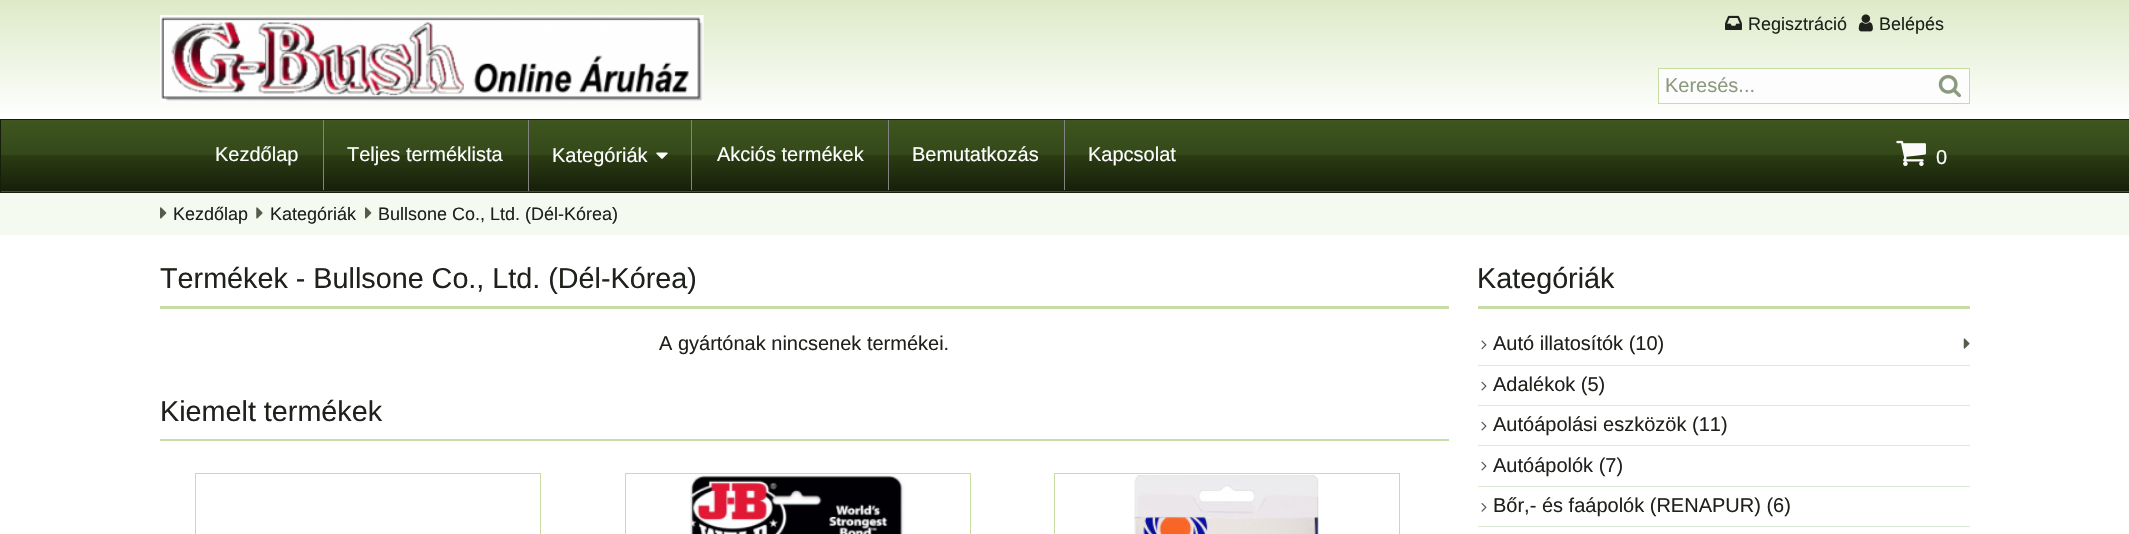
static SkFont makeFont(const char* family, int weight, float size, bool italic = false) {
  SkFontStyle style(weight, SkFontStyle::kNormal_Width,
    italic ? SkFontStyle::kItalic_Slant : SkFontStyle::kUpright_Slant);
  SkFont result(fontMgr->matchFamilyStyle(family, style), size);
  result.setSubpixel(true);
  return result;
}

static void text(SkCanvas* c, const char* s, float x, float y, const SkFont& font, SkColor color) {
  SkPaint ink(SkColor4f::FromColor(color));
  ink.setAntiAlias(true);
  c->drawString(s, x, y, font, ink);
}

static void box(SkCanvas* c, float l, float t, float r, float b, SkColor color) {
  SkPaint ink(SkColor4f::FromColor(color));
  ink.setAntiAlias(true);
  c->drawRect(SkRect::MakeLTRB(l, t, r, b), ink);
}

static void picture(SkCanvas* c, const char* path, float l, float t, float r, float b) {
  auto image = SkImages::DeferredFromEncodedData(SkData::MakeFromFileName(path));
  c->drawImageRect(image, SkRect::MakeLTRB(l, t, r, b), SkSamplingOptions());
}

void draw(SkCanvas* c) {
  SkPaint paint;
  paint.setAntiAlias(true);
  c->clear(0xffffffff);
  {
    const SkColor colors[] = {0xffddeac8, 0xffffffff};
    const float stops[] = {0, 1};
    const SkPoint ends[] = {{1065, 0}, {1065, 119}};
    paint.setShader(SkGradientShader::MakeLinear(ends, colors, stops, 2, SkTileMode::kClamp));
    paint.setAlpha(255);
  }
  c->drawRect(SkRect::MakeLTRB(0, 0, 2129, 114), paint);
  picture(c, "img_01.png", 160, 15, 704, 103);
  picture(c, "img_02.png", 1725, 15, 1742, 30);
  SkFont face1 = makeFont("Liberation Sans", 400, 18);
  text(c, "Regisztráció", 1748, 30, face1, 0xff1f221c);
  picture(c, "img_03.png", 1858, 14, 1873, 32);
  text(c, "Belépés", 1879, 30, face1, 0xff1f221c);
  paint.setShader(nullptr);
  paint.setColor(0xfffdfdfd);
  c->drawRect(SkRect::MakeLTRB(1658.5f, 68.5f, 1969.5f, 103.5f), paint);
  paint.setStyle(SkPaint::kStroke_Style);
  paint.setStrokeWidth(1);
  paint.setColor(0xffc6dda4);
  c->drawRect(SkRect::MakeLTRB(1658.5f, 68.5f, 1969.5f, 103.5f), paint);
  SkFont face2 = makeFont("Liberation Sans", 400, 20);
  text(c, "Keresés...", 1665, 92, face2, 0xff8b9a7e);
  picture(c, "img_04.png", 1938, 74, 1961, 98);
  paint.setStyle(SkPaint::kFill_Style);
  {
    const SkColor colors[] = {0xff3f561f, 0xff34481a, 0xff2b3c13, 0xff161f0a};
    const float stops[] = {0, 0.49f, 0.5f, 1};
    const SkPoint ends[] = {{1065, 120}, {1065, 191}};
    paint.setShader(SkGradientShader::MakeLinear(ends, colors, stops, 4, SkTileMode::kClamp));
    paint.setAlpha(255);
  }
  c->drawRect(SkRect::MakeLTRB(1, 120, 2129, 191), paint);
  {
    const SkColor colors[] = {0xff3f561f, 0xff34481a, 0xff2b3c13, 0xff161f0a};
    const float stops[] = {0, 0.49f, 0.5f, 1};
    const SkPoint ends[] = {{1065, 191}, {1065, 263}};
    paint.setShader(SkGradientShader::MakeLinear(ends, colors, stops, 4, SkTileMode::kClamp));
    paint.setAlpha(255);
  }
  c->drawRect(SkRect::MakeLTRB(0, 191, 2129, 192), paint);
  paint.setStyle(SkPaint::kStroke_Style);
  paint.setShader(nullptr);
  paint.setColor(0xff161f0a);
  c->drawRect(SkRect::MakeLTRB(0.5f, 119.5f, 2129.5f, 192.5f), paint);
  text(c, "Kezdőlap", 215, 161, face2, 0xffffffff);
  box(c, 323, 120, 324, 190, 0xff838383);
  text(c, "Teljes terméklista", 347, 161, face2, 0xffffffff);
  box(c, 528, 120, 529, 191, 0xff838383);
  text(c, "Kategóriák", 552, 162, face2, 0xffffffff);
  picture(c, "img_05.png", 656, 152, 668, 159);
  box(c, 691, 120, 692, 190, 0xff838383);
  text(c, "Akciós termékek", 717, 161, face2, 0xffffffff);
  box(c, 888, 120, 889, 190, 0xff838383);
  text(c, "Bemutatkozás", 912, 161, face2, 0xffffffff);
  box(c, 1064, 120, 1065, 190, 0xff838383);
  text(c, "Kapcsolat", 1088, 161, face2, 0xffffffff);
  picture(c, "img_06.png", 1896, 140, 1926, 166);
  text(c, "0", 1936, 164, face2, 0xffffffff);
  box(c, 0, 193, 2129, 235, 0xfff5faf1);
  picture(c, "img_07.png", 160, 207, 167, 219);
  text(c, "Kezdőlap", 173, 220, face1, 0xff1f221c);
  picture(c, "img_08.png", 256, 207, 263, 219);
  text(c, "Kategóriák", 270, 220, face1, 0xff1f221c);
  picture(c, "img_07.png", 365, 207, 372, 219);
  text(c, "Bullsone Co., Ltd. (Dél-Kórea)", 378, 220, face1, 0xff1f221c);
  box(c, 160, 306, 1449, 309, 0xffc7dda6);
  SkFont face3 = makeFont("Liberation Sans", 400, 28.75f);
  text(c, "Termékek - Bullsone Co., Ltd. (Dél-Kórea)", 160, 288, face3, 0xff1f221c);
  text(c, "A gyártónak nincsenek termékei.", 659, 350, face2, 0xff1f221c);
  box(c, 160, 439, 1449, 441, 0xffc7dda6);
  text(c, "Kiemelt termékek", 160, 421, face3, 0xff1f221c);
  paint.setColor(0xffc6dda4);
  c->drawRect(SkRect::MakeLTRB(195.5f, 473.5f, 540.5f, 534.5f), paint);
  c->drawRect(SkRect::MakeLTRB(625.5f, 473.5f, 970.5f, 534.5f), paint);
  picture(c, "img_09.png", 690, 475, 905, 534);
  c->drawRect(SkRect::MakeLTRB(1054.5f, 473.5f, 1399.5f, 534.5f), paint);
  picture(c, "img_10.png", 1134, 475, 1319, 534);
  box(c, 1478, 306, 1970, 309, 0xffc7dda6);
  text(c, "Kategóriák", 1477, 288, face3, 0xff1f221c);
  picture(c, "img_11.png", 1481, 340, 1487, 350);
  text(c, "Autó illatosítók (10)", 1493, 350, face2, 0xff1f221c);
  picture(c, "img_12.png", 1963, 338, 1970, 349);
  box(c, 1478, 365, 1970, 366, 0xffdde9d6);
  picture(c, "img_13.png", 1481, 381, 1487, 391);
  text(c, "Adalékok (5)", 1493, 391, face2, 0xff1f221c);
  box(c, 1478, 405, 1970, 406, 0xffdde9d6);
  picture(c, "img_13.png", 1481, 421, 1487, 431);
  text(c, "Autóápolási eszközök (11)", 1493, 431, face2, 0xff1f221c);
  box(c, 1478, 445, 1970, 446, 0xffdde9d6);
  picture(c, "img_13.png", 1481, 461, 1487, 471);
  text(c, "Autóápolók (7)", 1493, 472, face2, 0xff1f221c);
  box(c, 1478, 486, 1970, 487, 0xffdde9d6);
  picture(c, "img_14.png", 1481, 503, 1487, 512);
  text(c, "Bőr,- és faápolók (RENAPUR) (6)", 1493, 512, face2, 0xff1f221c);
  box(c, 1478, 526, 1970, 527, 0xffdde9d6);
}
